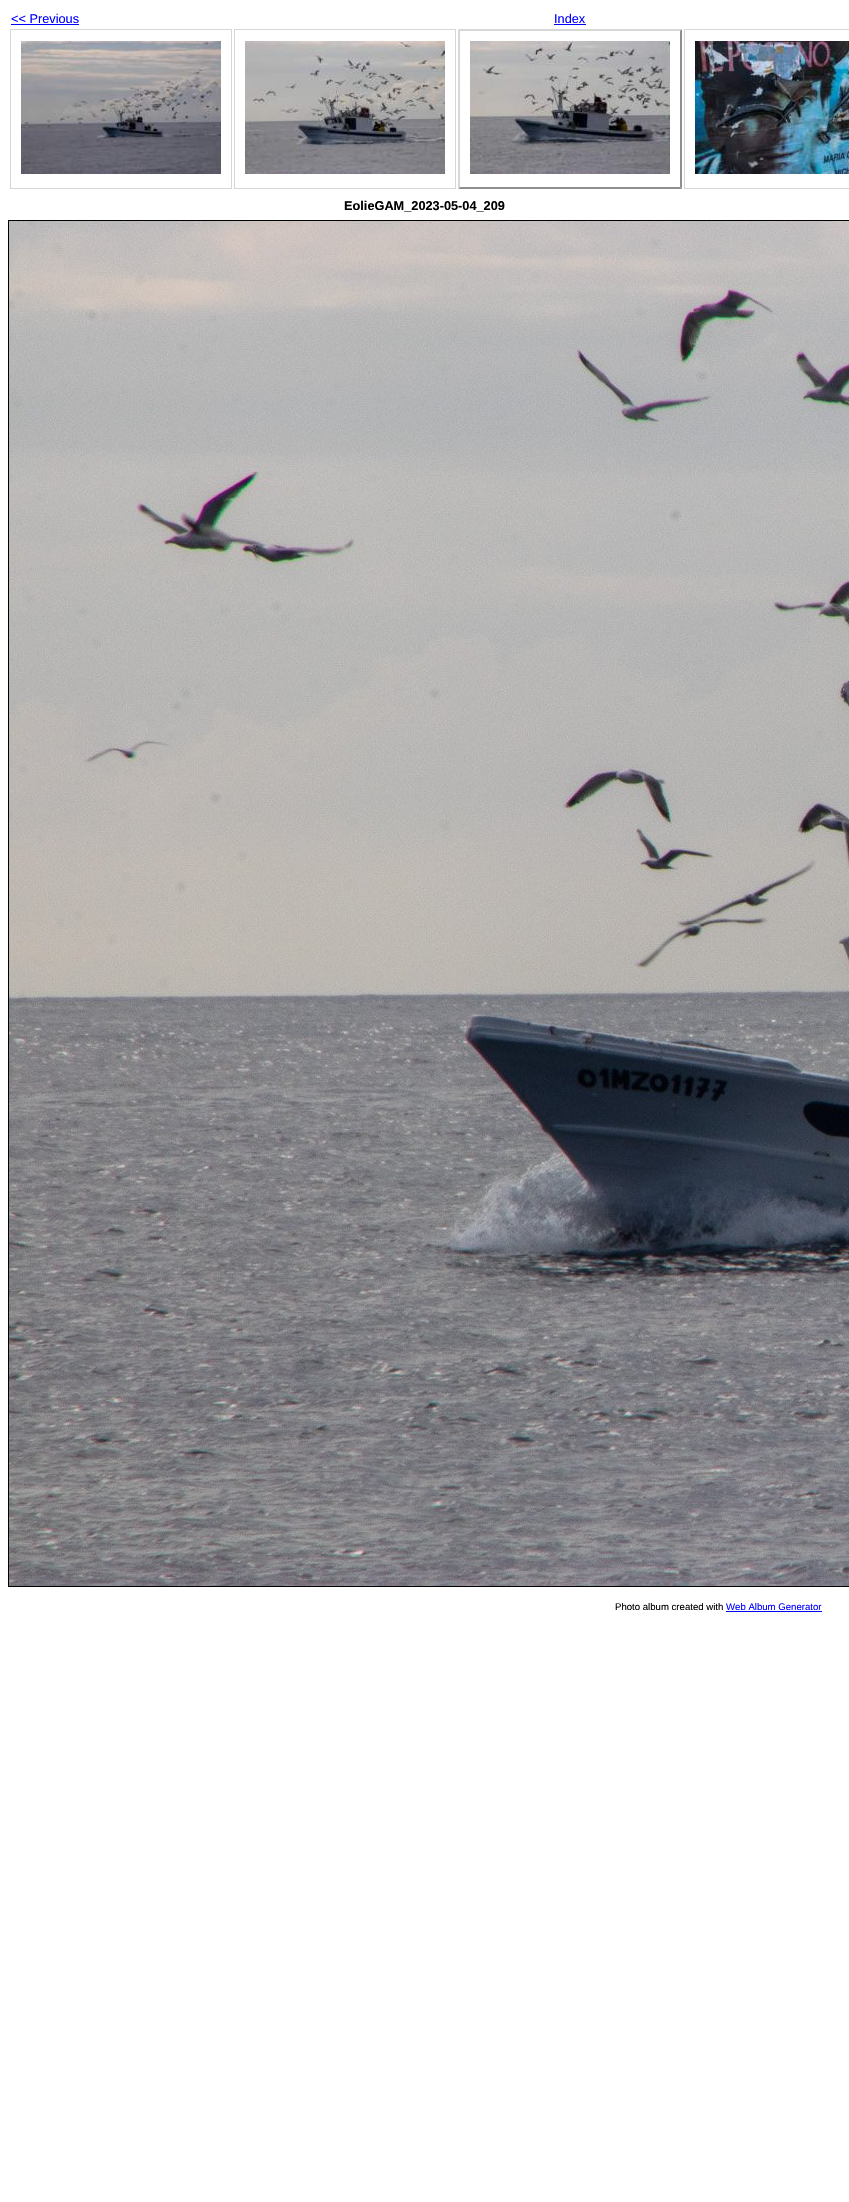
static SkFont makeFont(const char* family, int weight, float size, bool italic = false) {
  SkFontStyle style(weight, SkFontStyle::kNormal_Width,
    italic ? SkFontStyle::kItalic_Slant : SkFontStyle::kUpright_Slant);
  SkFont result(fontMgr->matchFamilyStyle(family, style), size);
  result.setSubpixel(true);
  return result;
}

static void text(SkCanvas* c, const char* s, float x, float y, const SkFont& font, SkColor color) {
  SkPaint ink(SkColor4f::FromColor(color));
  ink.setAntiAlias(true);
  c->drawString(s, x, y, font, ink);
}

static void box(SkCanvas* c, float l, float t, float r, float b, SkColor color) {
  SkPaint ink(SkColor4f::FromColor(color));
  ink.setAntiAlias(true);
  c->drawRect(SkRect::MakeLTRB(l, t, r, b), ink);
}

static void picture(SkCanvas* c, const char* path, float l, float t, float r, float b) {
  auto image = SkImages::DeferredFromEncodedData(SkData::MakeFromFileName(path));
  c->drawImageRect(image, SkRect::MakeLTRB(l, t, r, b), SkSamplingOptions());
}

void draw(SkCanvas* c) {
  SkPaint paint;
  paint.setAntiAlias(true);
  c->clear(0xffffffff);
  SkFont face1 = makeFont("Liberation Sans", 400, 12.75f);
  text(c, "<< Previous", 11, 23, face1, 0xff0000ff);
  box(c, 11, 24, 79, 25, 0xff0000ff);
  text(c, "Index", 554, 23, face1, 0xff0000ff);
  box(c, 554, 24, 586, 25, 0xff0000ff);
  paint.setStyle(SkPaint::kStroke_Style);
  paint.setStrokeWidth(1);
  paint.setColor(0xffd7d7d7);
  c->drawRect(SkRect::MakeLTRB(10.5f, 29.5f, 231.5f, 188.5f), paint);
  picture(c, "img_01.png", 21, 41, 221, 174);
  c->drawRect(SkRect::MakeLTRB(234.5f, 29.5f, 455.5f, 188.5f), paint);
  picture(c, "img_02.png", 245, 41, 445, 174);
  paint.setStyle(SkPaint::kFill_Style);
  c->drawPath(SkPathBuilder().moveTo(458, 29).lineTo(682, 29).lineTo(680, 31).lineTo(460, 31).close().detach(), paint);
  paint.setColor(0xff8f8f8f);
  c->drawPath(SkPathBuilder().moveTo(682, 29).lineTo(682, 189).lineTo(680, 187).lineTo(680, 31).close().detach(), paint);
  c->drawPath(SkPathBuilder().moveTo(682, 189).lineTo(458, 189).lineTo(460, 187).lineTo(680, 187).close().detach(), paint);
  paint.setColor(0xffd7d7d7);
  c->drawPath(SkPathBuilder().moveTo(458, 189).lineTo(458, 29).lineTo(460, 31).lineTo(460, 187).close().detach(), paint);
  picture(c, "img_03.png", 470, 41, 670, 174);
  paint.setStyle(SkPaint::kStroke_Style);
  c->drawRect(SkRect::MakeLTRB(684.5f, 29.5f, 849.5f, 188.5f), paint);
  picture(c, "img_04.png", 695, 41, 849, 174);
  SkFont face2 = makeFont("Liberation Sans", 700, 12.75f);
  text(c, "EolieGAM_2023-05-04_209", 344, 210, face2, 0xff000000);
  paint.setColor(0xff000000);
  c->drawRect(SkRect::MakeLTRB(8.5f, 220.5f, 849.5f, 1586.5f), paint);
  picture(c, "img_05.png", 9, 221, 849, 1586);
  SkFont face3 = makeFont("Liberation Sans", 400, 9.6f);
  text(c, "Photo album created with", 615, 1610, face3, 0xff000000);
  text(c, "Web Album Generator", 726, 1610, face3, 0xff0000ff);
  box(c, 726, 1611, 822, 1612, 0xff0000ff);
}
